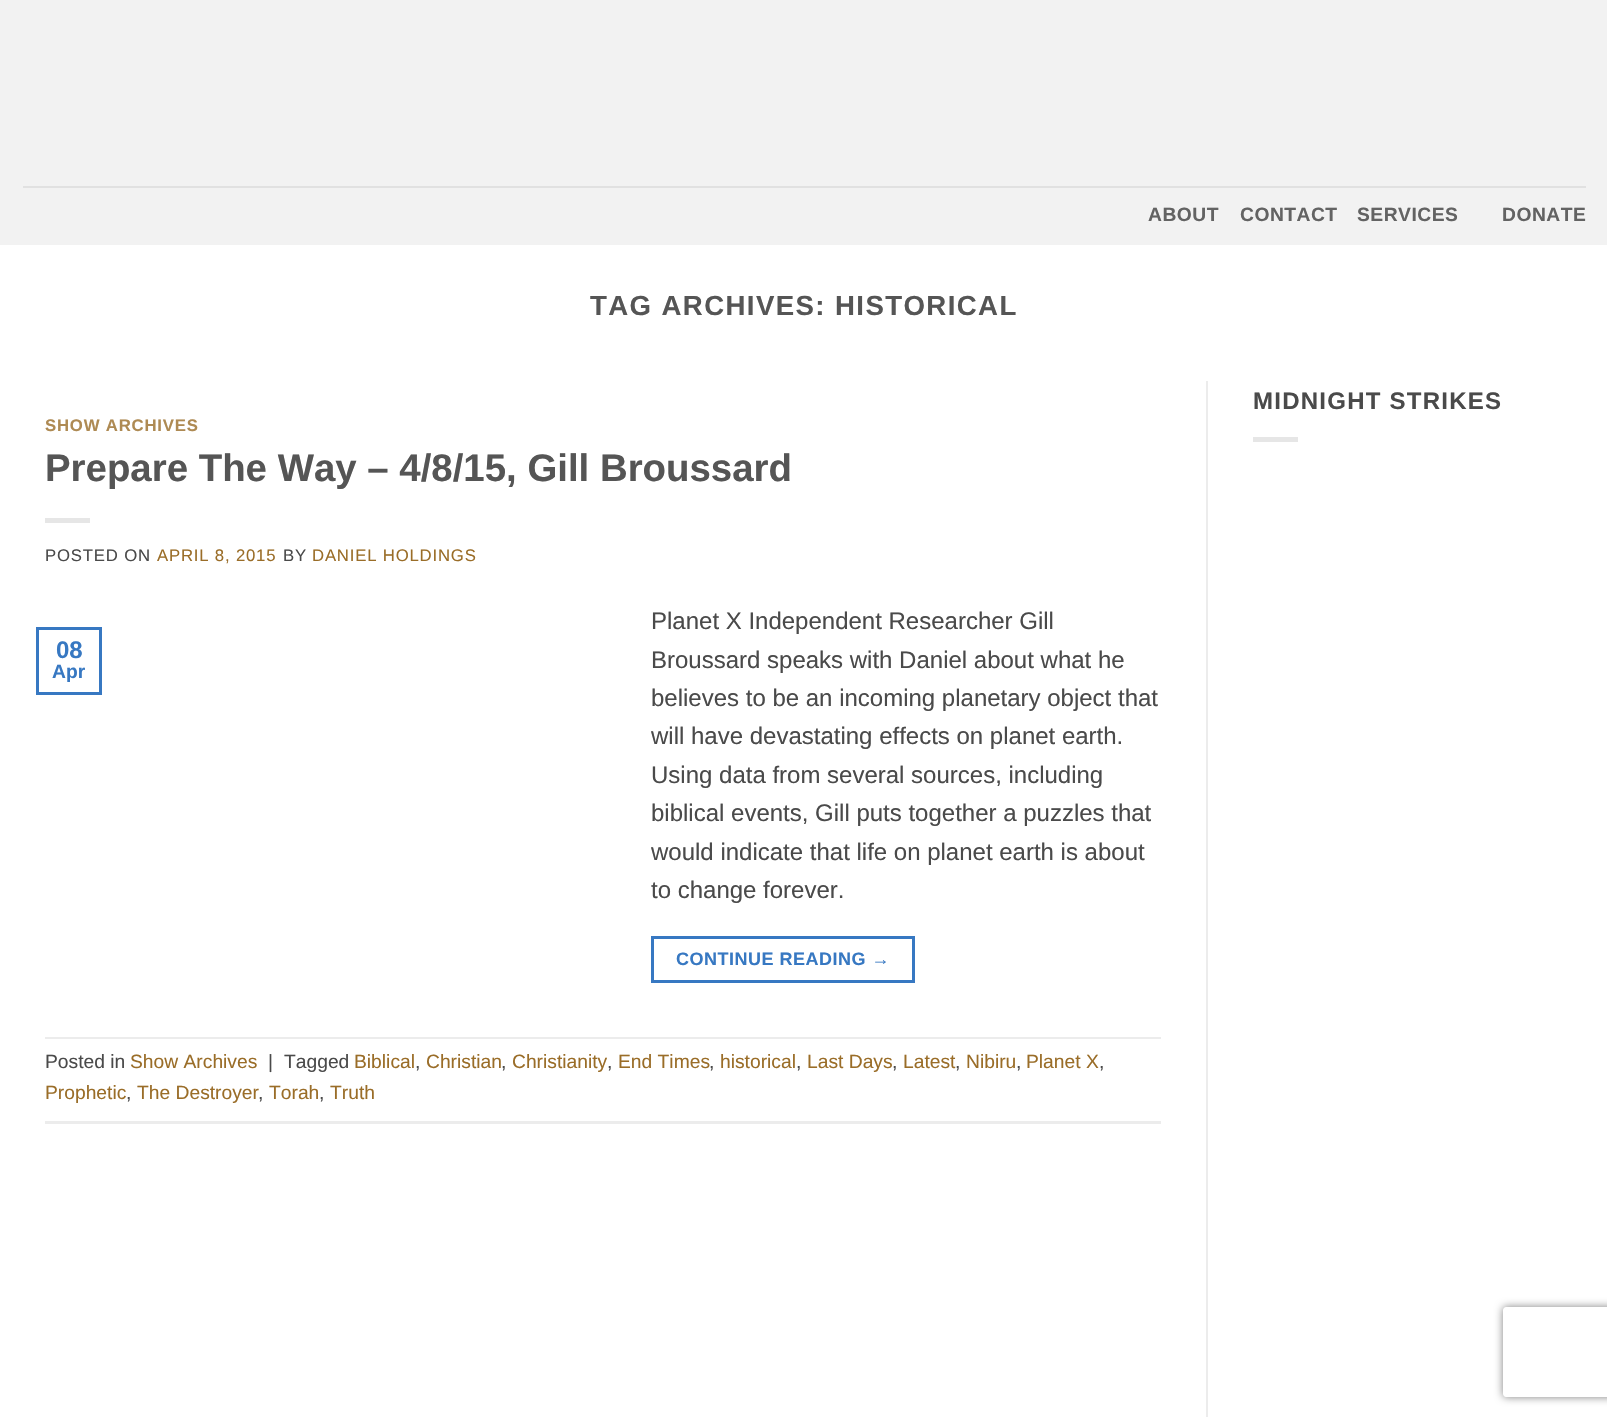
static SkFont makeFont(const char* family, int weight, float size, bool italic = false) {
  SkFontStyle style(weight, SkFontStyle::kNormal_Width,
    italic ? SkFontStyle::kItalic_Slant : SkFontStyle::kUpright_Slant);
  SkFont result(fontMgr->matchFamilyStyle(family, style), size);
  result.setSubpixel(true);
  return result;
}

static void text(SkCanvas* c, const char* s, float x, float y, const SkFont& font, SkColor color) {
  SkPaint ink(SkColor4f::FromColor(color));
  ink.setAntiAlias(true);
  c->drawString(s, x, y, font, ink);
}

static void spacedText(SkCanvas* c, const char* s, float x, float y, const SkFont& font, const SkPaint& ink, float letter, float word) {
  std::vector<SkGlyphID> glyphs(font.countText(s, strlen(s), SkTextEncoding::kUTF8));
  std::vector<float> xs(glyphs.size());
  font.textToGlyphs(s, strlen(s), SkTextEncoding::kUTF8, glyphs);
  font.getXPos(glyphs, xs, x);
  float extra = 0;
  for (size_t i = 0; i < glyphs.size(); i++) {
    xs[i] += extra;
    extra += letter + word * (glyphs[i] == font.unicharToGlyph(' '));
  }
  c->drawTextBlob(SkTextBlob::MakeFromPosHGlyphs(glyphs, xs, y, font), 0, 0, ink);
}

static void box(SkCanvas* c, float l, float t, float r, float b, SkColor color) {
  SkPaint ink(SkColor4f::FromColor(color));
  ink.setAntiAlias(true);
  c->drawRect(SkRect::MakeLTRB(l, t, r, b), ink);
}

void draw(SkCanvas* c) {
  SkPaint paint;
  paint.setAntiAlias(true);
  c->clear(0xffffffff);
  box(c, 0, 0, 1607, 245, 0xfff2f2f2);
  box(c, 23, 186, 1586, 188, 0xffe1e1e1);
  SkFont face1 = makeFont("Liberation Sans", 700, 19.25f);
  paint.setColor(0xff636363);
  spacedText(c, "ABOUT", 1148, 221, face1, paint, 0.5f, 0);
  spacedText(c, "CONTACT", 1240, 221, face1, paint, 0.5f, 0);
  spacedText(c, "SERVICES", 1357, 221, face1, paint, 0.5f, 0);
  spacedText(c, "DONATE", 1502, 221, face1, paint, 0.5f, 0);
  SkFont face2 = makeFont("Liberation Sans", 700, 27.6f);
  paint.setColor(0xff555555);
  spacedText(c, "TAG ARCHIVES: HISTORICAL", 590, 315, face2, paint, 1.4f, 0);
  box(c, 1206, 381, 1208, 1417, 0xffececec);
  SkFont face3 = makeFont("Liberation Sans", 700, 24);
  paint.setColor(0xff4a4a4a);
  spacedText(c, "MIDNIGHT STRIKES", 1253, 409, face3, paint, 1.25f, 0);
  box(c, 1253, 437, 1298, 442, 0xffe6e6e6);
  SkFont face4 = makeFont("Liberation Sans", 700, 16.75f);
  paint.setColor(0xffae8a53);
  spacedText(c, "SHOW ARCHIVES", 45, 431, face4, paint, 0.8f, 0);
  SkFont face5 = makeFont("Liberation Sans", 700, 38.4f);
  text(c, "Prepare The Way – 4/8/15, Gill Broussard", 45, 481, face5, 0xff555555);
  box(c, 45, 518, 90, 523, 0xffe6e6e6);
  SkFont face6 = makeFont("Liberation Sans", 400, 16.75f);
  paint.setColor(0xff4a4a4a);
  spacedText(c, "POSTED ON", 45, 561, face6, paint, 0.8f, 0);
  paint.setColor(0xff9a6d28);
  spacedText(c, "APRIL 8, 2015", 157, 561, face6, paint, 0.8f, 0);
  paint.setColor(0xff4a4a4a);
  spacedText(c, "BY", 283, 561, face6, paint, 0.8f, 0);
  paint.setColor(0xff9a6d28);
  spacedText(c, "DANIEL HOLDINGS", 312, 561, face6, paint, 0.8f, 0);
  paint.setStyle(SkPaint::kStroke_Style);
  paint.setStrokeWidth(3);
  paint.setColor(0xff3778c2);
  c->drawRect(SkRect::MakeLTRB(37.5f, 628.5f, 100.5f, 693.5f), paint);
  text(c, "08", 56, 658, face3, 0xff3778c2);
  text(c, "Apr", 52, 678, face1, 0xff3778c2);
  SkFont face7 = makeFont("Liberation Sans", 400, 24);
  text(c, "Planet X Independent Researcher Gill", 651, 629, face7, 0xff4a4a4a);
  text(c, "Broussard speaks with Daniel about what he", 651, 668, face7, 0xff4a4a4a);
  text(c, "believes to be an incoming planetary object that", 651, 706, face7, 0xff4a4a4a);
  text(c, "will have devastating effects on planet earth.", 651, 744, face7, 0xff4a4a4a);
  text(c, "Using data from several sources, including", 651, 783, face7, 0xff4a4a4a);
  text(c, "biblical events, Gill puts together a puzzles that", 651, 821, face7, 0xff4a4a4a);
  text(c, "would indicate that life on planet earth is about", 651, 860, face7, 0xff4a4a4a);
  text(c, "to change forever.", 651, 898, face7, 0xff4a4a4a);
  c->drawRect(SkRect::MakeLTRB(652.5f, 937.5f, 913.5f, 981.5f), paint);
  SkFont face8 = makeFont("Liberation Sans", 700, 18);
  paint.setStyle(SkPaint::kFill_Style);
  spacedText(c, "CONTINUE READING →", 676, 965, face8, paint, 0.5f, 0);
  box(c, 45, 1037, 1161, 1039, 0xffececec);
  box(c, 45, 1121, 1161, 1124, 0xffececec);
  SkFont face9 = makeFont("Liberation Sans", 400, 19.25f);
  text(c, "Posted in", 45, 1068, face9, 0xff4a4a4a);
  text(c, "Show Archives", 130, 1068, face9, 0xff9a6d28);
  text(c, "|", 268, 1068, face9, 0xff4a4a4a);
  text(c, "Tagged", 284, 1068, face9, 0xff4a4a4a);
  text(c, "Biblical", 354, 1068, face9, 0xff9a6d28);
  text(c, ",", 415, 1068, face9, 0xff4a4a4a);
  text(c, "Christian", 426, 1068, face9, 0xff9a6d28);
  text(c, ",", 501, 1068, face9, 0xff4a4a4a);
  text(c, "Christianity", 512, 1068, face9, 0xff9a6d28);
  text(c, ",", 607, 1068, face9, 0xff4a4a4a);
  text(c, "End Times", 618, 1068, face9, 0xff9a6d28);
  text(c, ",", 709, 1068, face9, 0xff4a4a4a);
  text(c, "historical", 720, 1068, face9, 0xff9a6d28);
  text(c, ",", 796, 1068, face9, 0xff4a4a4a);
  text(c, "Last Days", 807, 1068, face9, 0xff9a6d28);
  text(c, ",", 892, 1068, face9, 0xff4a4a4a);
  text(c, "Latest", 903, 1068, face9, 0xff9a6d28);
  text(c, ",", 955, 1068, face9, 0xff4a4a4a);
  text(c, "Nibiru", 966, 1068, face9, 0xff9a6d28);
  text(c, ",", 1016, 1068, face9, 0xff4a4a4a);
  text(c, "Planet X", 1026, 1068, face9, 0xff9a6d28);
  text(c, ",", 1099, 1068, face9, 0xff4a4a4a);
  text(c, "Prophetic", 45, 1099, face9, 0xff9a6d28);
  text(c, ",", 126, 1099, face9, 0xff4a4a4a);
  text(c, "The Destroyer", 137, 1099, face9, 0xff9a6d28);
  text(c, ",", 258, 1099, face9, 0xff4a4a4a);
  text(c, "Torah", 269, 1099, face9, 0xff9a6d28);
  text(c, ",", 319, 1099, face9, 0xff4a4a4a);
  text(c, "Truth", 330, 1099, face9, 0xff9a6d28);
  c->save();
  c->clipPath(SkPathBuilder(SkPathFillType::kEvenOdd).moveTo(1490, 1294).lineTo(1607, 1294).lineTo(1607, 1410).lineTo(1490, 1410).close().moveTo(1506, 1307).lineTo(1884, 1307).cubicTo(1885.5f, 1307, 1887, 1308.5f, 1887, 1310).lineTo(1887, 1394).cubicTo(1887, 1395.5f, 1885.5f, 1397, 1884, 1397).lineTo(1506, 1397).cubicTo(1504.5f, 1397, 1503, 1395.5f, 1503, 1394).lineTo(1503, 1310).cubicTo(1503, 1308.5f, 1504.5f, 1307, 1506, 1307).close().detach(), true);
  paint.setColor(0xff808080);
  paint.setMaskFilter(SkMaskFilter::MakeBlur(kNormal_SkBlurStyle, 4));
  c->drawRoundRect(SkRect::MakeLTRB(1503, 1307, 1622, 1397), 3, 3, paint);
  paint.setMaskFilter(nullptr);
  c->restore();
}
